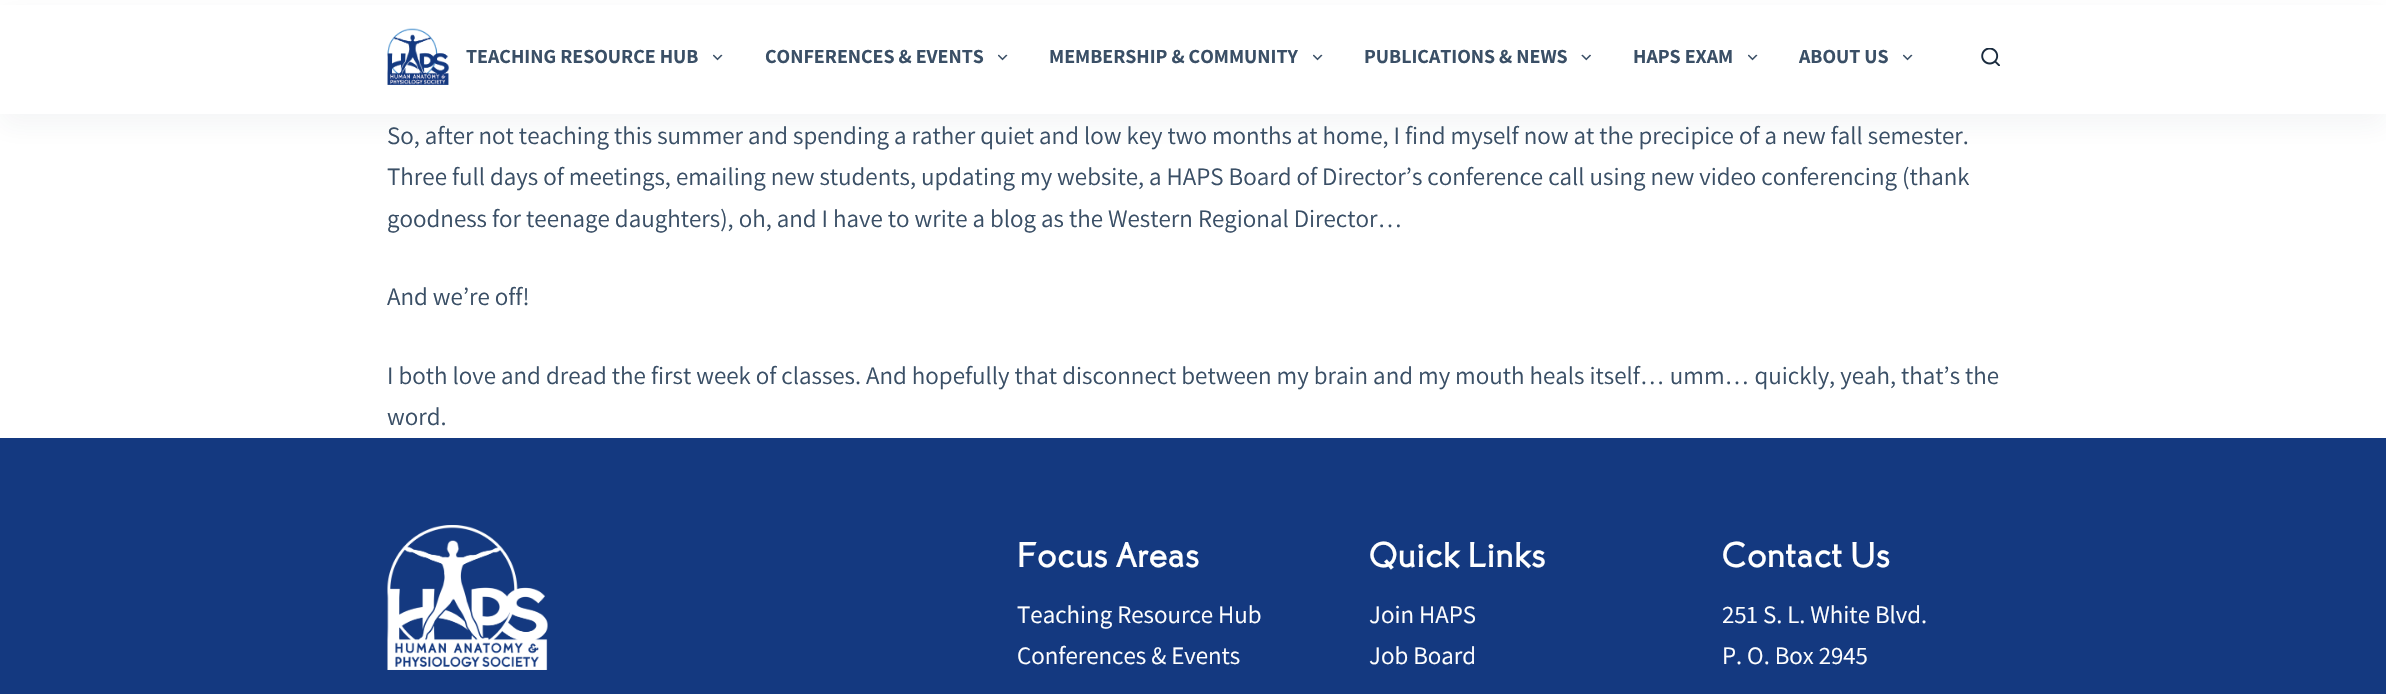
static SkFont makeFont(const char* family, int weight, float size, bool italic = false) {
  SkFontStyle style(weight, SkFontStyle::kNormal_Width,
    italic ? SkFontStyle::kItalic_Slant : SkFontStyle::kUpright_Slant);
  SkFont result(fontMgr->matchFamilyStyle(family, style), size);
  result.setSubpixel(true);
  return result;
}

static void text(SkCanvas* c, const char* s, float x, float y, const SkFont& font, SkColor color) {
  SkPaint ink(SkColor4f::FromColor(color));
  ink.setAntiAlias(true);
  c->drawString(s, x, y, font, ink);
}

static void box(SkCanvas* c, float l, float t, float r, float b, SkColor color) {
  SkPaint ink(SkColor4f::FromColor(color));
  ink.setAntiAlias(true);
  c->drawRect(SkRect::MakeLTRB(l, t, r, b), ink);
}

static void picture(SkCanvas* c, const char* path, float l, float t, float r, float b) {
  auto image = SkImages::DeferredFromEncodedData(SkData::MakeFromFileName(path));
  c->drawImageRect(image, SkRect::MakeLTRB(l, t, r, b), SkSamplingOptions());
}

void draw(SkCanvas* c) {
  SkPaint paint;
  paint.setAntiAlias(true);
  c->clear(0xffffffff);
  paint.setColor(0x0d2c3e50);
  paint.setMaskFilter(SkMaskFilter::MakeBlur(kNormal_SkBlurStyle, 12.5f));
  c->drawRect(SkRect::MakeLTRB(0, 13, 2386, 126), paint);
  paint.setMaskFilter(nullptr);
  box(c, 0, 5, 2386, 114, 0xffffffff);
  picture(c, "img_01.png", 387, 28, 450, 85);
  SkFont face1 = makeFont("Assistant", 700, 20);
  text(c, "TEACHING RESOURCE HUB", 466, 63, face1, 0xff3a4f66);
  picture(c, "img_02.png", 713, 54, 723, 61);
  text(c, "CONFERENCES & EVENTS", 765, 63, face1, 0xff3a4f66);
  picture(c, "img_02.png", 998, 54, 1008, 61);
  text(c, "MEMBERSHIP & COMMUNITY", 1049, 63, face1, 0xff3a4f66);
  picture(c, "img_02.png", 1313, 54, 1323, 61);
  text(c, "PUBLICATIONS & NEWS", 1364, 63, face1, 0xff3a4f66);
  picture(c, "img_03.png", 1581, 54, 1591, 61);
  text(c, "HAPS EXAM", 1633, 63, face1, 0xff3a4f66);
  picture(c, "img_02.png", 1748, 54, 1758, 61);
  text(c, "ABOUT US", 1799, 63, face1, 0xff3a4f66);
  picture(c, "img_02.png", 1903, 54, 1913, 61);
  picture(c, "img_04.png", 1981, 48, 2000, 66);
  SkFont face2 = makeFont("Assistant", 400, 25);
  text(c, "So, after not teaching this summer and spending a rather quiet and low key two months at home, I find myself now at the precipice of a new fall semester.", 387, 144, face2, 0xff3a4f66);
  text(c, "Three full days of meetings, emailing new students, updating my website, a HAPS Board of Director’s conference call using new video conferencing (thank", 387, 185, face2, 0xff3a4f66);
  text(c, "goodness for teenage daughters), oh, and I have to write a blog as the Western Regional Director…", 387, 227, face2, 0xff3a4f66);
  text(c, "And we’re off!", 387, 305, face2, 0xff3a4f66);
  text(c, "I both love and dread the first week of classes. And hopefully that disconnect between my brain and my mouth heals itself… umm… quickly, yeah, that’s the", 387, 384, face2, 0xff3a4f66);
  text(c, "word.", 387, 425, face2, 0xff3a4f66);
  box(c, 0, 438, 2386, 694, 0xff143980);
  picture(c, "img_05.png", 387, 525, 548, 670);
  SkFont face3 = makeFont("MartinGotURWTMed", 400, 37.5f);
  text(c, "Focus Areas", 1017, 567, face3, 0xffffffff);
  text(c, "Teaching Resource Hub", 1017, 623, face2, 0xffffffff);
  text(c, "Conferences & Events", 1017, 664, face2, 0xffffffff);
  text(c, "Quick Links", 1369, 567, face3, 0xffffffff);
  text(c, "Join HAPS", 1369, 623, face2, 0xffffffff);
  text(c, "Job Board", 1369, 664, face2, 0xffffffff);
  text(c, "Contact Us", 1722, 567, face3, 0xffffffff);
  text(c, "251 S. L. White Blvd.", 1722, 623, face2, 0xffffffff);
  text(c, "P. O. Box 2945", 1722, 664, face2, 0xffffffff);
}
